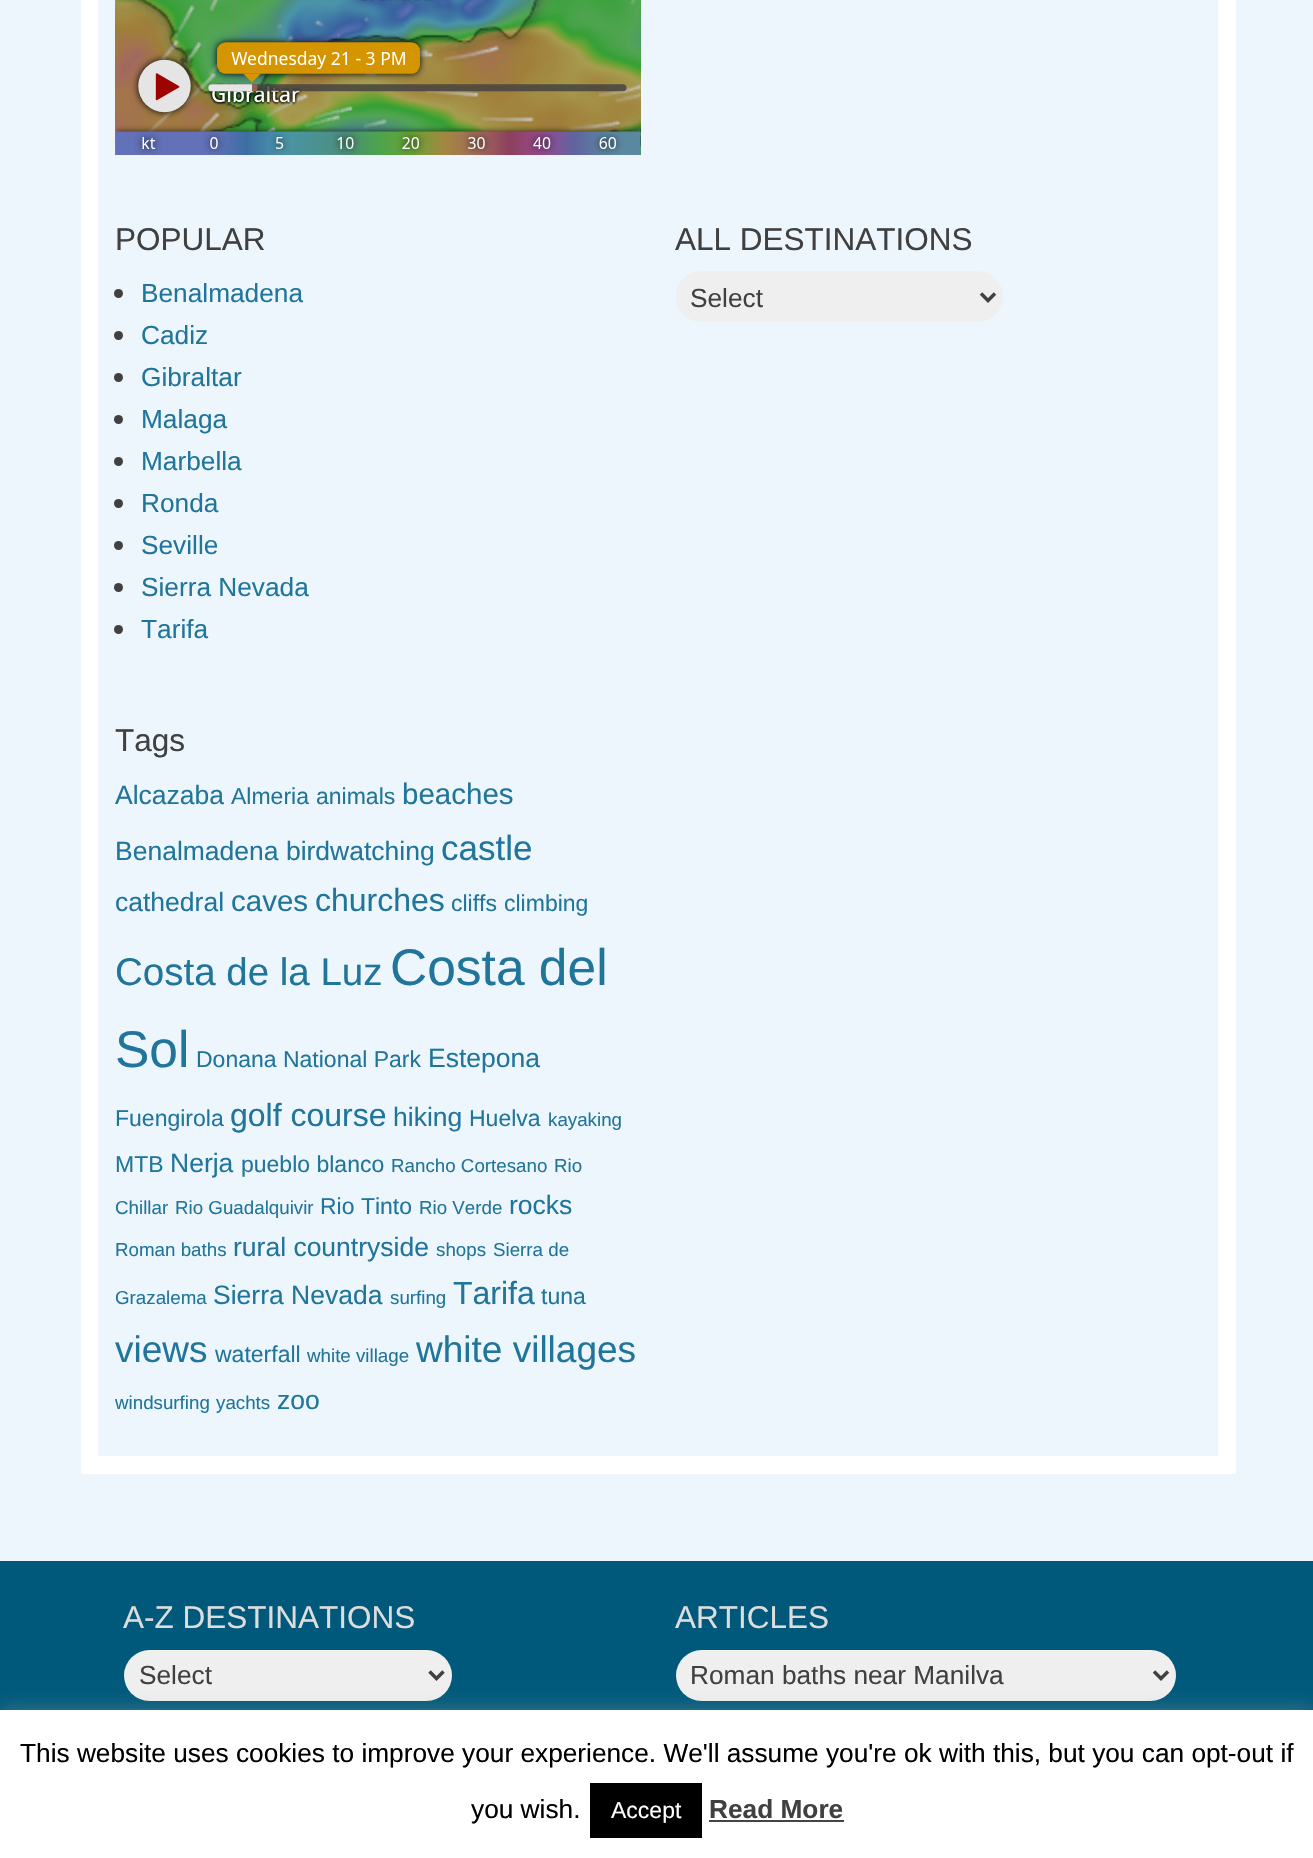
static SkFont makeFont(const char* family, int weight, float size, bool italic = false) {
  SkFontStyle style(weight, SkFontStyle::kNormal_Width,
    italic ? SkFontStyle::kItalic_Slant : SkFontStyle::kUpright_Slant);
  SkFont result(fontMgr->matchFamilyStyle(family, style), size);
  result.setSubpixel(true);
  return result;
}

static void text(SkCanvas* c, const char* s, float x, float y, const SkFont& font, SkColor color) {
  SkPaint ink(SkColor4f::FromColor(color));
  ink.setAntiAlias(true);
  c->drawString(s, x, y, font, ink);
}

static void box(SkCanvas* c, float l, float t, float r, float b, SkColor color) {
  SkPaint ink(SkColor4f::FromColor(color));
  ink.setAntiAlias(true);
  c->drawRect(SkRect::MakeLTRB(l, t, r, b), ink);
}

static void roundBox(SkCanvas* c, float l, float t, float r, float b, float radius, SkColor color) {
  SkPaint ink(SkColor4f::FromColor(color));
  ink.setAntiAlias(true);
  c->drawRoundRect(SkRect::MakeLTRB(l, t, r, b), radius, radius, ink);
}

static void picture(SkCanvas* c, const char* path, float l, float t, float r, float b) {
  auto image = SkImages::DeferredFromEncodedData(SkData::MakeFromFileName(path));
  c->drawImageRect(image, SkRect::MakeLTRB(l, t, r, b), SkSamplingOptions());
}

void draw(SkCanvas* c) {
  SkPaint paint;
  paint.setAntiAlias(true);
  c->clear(0xffedf6fc);
  box(c, 81, 0, 1236, 1474, 0xffffffff);
  box(c, 98, 0, 1218, 1456, 0xffedf6fc);
  picture(c, "img_01.png", 115, 0, 641, 155);
  SkFont face1 = makeFont("Liberation Sans", 400, 31.5f);
  text(c, "POPULAR", 115, 250, face1, 0xff404040);
  paint.setColor(0xff404040);
  c->drawCircle(118.5f, 293.5f, 4.5f, paint);
  SkFont face2 = makeFont("Liberation Sans", 400, 26.25f);
  text(c, "Benalmadena", 141, 302, face2, 0xff21759b);
  c->drawCircle(118.5f, 335.5f, 4.5f, paint);
  text(c, "Cadiz", 141, 344, face2, 0xff21759b);
  c->drawCircle(118.5f, 377.5f, 4.5f, paint);
  text(c, "Gibraltar", 141, 386, face2, 0xff21759b);
  c->drawCircle(118.5f, 419.5f, 4.5f, paint);
  text(c, "Malaga", 141, 428, face2, 0xff21759b);
  c->drawCircle(118.5f, 461.5f, 4.5f, paint);
  text(c, "Marbella", 141, 470, face2, 0xff21759b);
  c->drawCircle(118.5f, 503.5f, 4.5f, paint);
  text(c, "Ronda", 141, 512, face2, 0xff21759b);
  c->drawCircle(118.5f, 545.5f, 4.5f, paint);
  text(c, "Seville", 141, 554, face2, 0xff21759b);
  c->drawCircle(118.5f, 587.5f, 4.5f, paint);
  text(c, "Sierra Nevada", 141, 596, face2, 0xff21759b);
  c->drawCircle(118.5f, 629.5f, 4.5f, paint);
  text(c, "Tarifa", 141, 638, face2, 0xff21759b);
  text(c, "ALL DESTINATIONS", 675, 250, face1, 0xff404040);
  roundBox(c, 676, 271, 1003, 322, 25.5f, 0xffefefef);
  paint.setStyle(SkPaint::kStroke_Style);
  paint.setStrokeWidth(3.5f);
  c->drawPath(SkPathBuilder().moveTo(981, 293.5f).lineTo(988, 300.5f).lineTo(995, 293.5f).detach(), paint);
  text(c, "Select", 690, 307, face2, 0xff404040);
  text(c, "Tags", 115, 751, face1, 0xff404040);
  SkFont face3 = makeFont("Liberation Sans", 400, 26.5f);
  text(c, "Alcazaba", 115, 804, face3, 0xff21759b);
  SkFont face4 = makeFont("Liberation Sans", 400, 23);
  text(c, "Almeria", 231, 804, face4, 0xff21759b);
  text(c, "animals", 316, 804, face4, 0xff21759b);
  SkFont face5 = makeFont("Liberation Sans", 400, 29.5f);
  text(c, "beaches", 402, 804, face5, 0xff21759b);
  text(c, "Benalmadena birdwatching", 115, 860, face3, 0xff21759b);
  SkFont face6 = makeFont("Liberation Sans", 400, 35);
  text(c, "castle", 441, 860, face6, 0xff21759b);
  text(c, "cathedral", 115, 911, face3, 0xff21759b);
  text(c, "caves", 231, 911, face5, 0xff21759b);
  SkFont face7 = makeFont("Liberation Sans", 400, 32);
  text(c, "churches", 315, 911, face7, 0xff21759b);
  text(c, "cliffs", 451, 911, face4, 0xff21759b);
  text(c, "climbing", 504, 911, face4, 0xff21759b);
  SkFont face8 = makeFont("Liberation Sans", 400, 38.5f);
  text(c, "Costa de la Luz", 115, 985, face8, 0xff21759b);
  SkFont face9 = makeFont("Liberation Sans", 400, 51.5f);
  text(c, "Costa del", 390, 985, face9, 0xff21759b);
  text(c, "Sol", 115, 1067, face9, 0xff21759b);
  text(c, "Donana National Park", 196, 1067, face4, 0xff21759b);
  text(c, "Estepona", 428, 1067, face3, 0xff21759b);
  text(c, "Fuengirola", 115, 1126, face4, 0xff21759b);
  text(c, "golf course", 230, 1126, face7, 0xff21759b);
  text(c, "hiking", 393, 1126, face3, 0xff21759b);
  text(c, "Huelva", 469, 1126, face4, 0xff21759b);
  SkFont face10 = makeFont("Liberation Sans", 400, 18.75f);
  text(c, "kayaking", 548, 1126, face10, 0xff21759b);
  text(c, "MTB", 115, 1172, face4, 0xff21759b);
  text(c, "Nerja", 170, 1172, face3, 0xff21759b);
  text(c, "pueblo blanco", 241, 1172, face4, 0xff21759b);
  text(c, "Rancho Cortesano", 391, 1172, face10, 0xff21759b);
  text(c, "Rio", 554, 1172, face10, 0xff21759b);
  text(c, "Chillar", 115, 1214, face10, 0xff21759b);
  text(c, "Rio Guadalquivir", 175, 1214, face10, 0xff21759b);
  text(c, "Rio Tinto", 320, 1214, face4, 0xff21759b);
  text(c, "Rio Verde", 419, 1214, face10, 0xff21759b);
  text(c, "rocks", 509, 1214, face3, 0xff21759b);
  text(c, "Roman baths", 115, 1256, face10, 0xff21759b);
  text(c, "rural countryside", 233, 1256, face3, 0xff21759b);
  text(c, "shops", 436, 1256, face10, 0xff21759b);
  text(c, "Sierra de", 493, 1256, face10, 0xff21759b);
  text(c, "Grazalema", 115, 1304, face10, 0xff21759b);
  text(c, "Sierra Nevada", 213, 1304, face3, 0xff21759b);
  text(c, "surfing", 390, 1304, face10, 0xff21759b);
  text(c, "Tarifa", 453, 1304, face7, 0xff21759b);
  text(c, "tuna", 541, 1304, face4, 0xff21759b);
  SkFont face11 = makeFont("Liberation Sans", 400, 37);
  text(c, "views", 115, 1362, face11, 0xff21759b);
  text(c, "waterfall", 215, 1362, face4, 0xff21759b);
  text(c, "white village", 307, 1362, face10, 0xff21759b);
  text(c, "white villages", 416, 1362, face11, 0xff21759b);
  text(c, "windsurfing", 115, 1409, face10, 0xff21759b);
  text(c, "yachts", 216, 1409, face10, 0xff21759b);
  text(c, "zoo", 277, 1409, face3, 0xff21759b);
  box(c, 0, 1561, 1313, 1710, 0xff00597a);
  text(c, "A-Z DESTINATIONS", 123, 1628, face1, 0xffdddddd);
  roundBox(c, 124, 1650, 452, 1701, 25.5f, 0xffefefef);
  c->drawPath(SkPathBuilder().moveTo(429.5f, 1671.5f).lineTo(436.5f, 1678.5f).lineTo(443.5f, 1671.5f).detach(), paint);
  text(c, "Select", 139, 1684, face2, 0xff404040);
  text(c, "ARTICLES", 675, 1628, face1, 0xffdddddd);
  roundBox(c, 676, 1650, 1176, 1701, 25.5f, 0xffefefef);
  c->drawPath(SkPathBuilder().moveTo(1154, 1671.5f).lineTo(1161, 1678.5f).lineTo(1168, 1671.5f).detach(), paint);
  text(c, "Roman baths near Manilva", 690, 1684, face2, 0xff404040);
  paint.setStyle(SkPaint::kFill_Style);
  paint.setColor(0x4dacabab);
  paint.setMaskFilter(SkMaskFilter::MakeBlur(kNormal_SkBlurStyle, 9));
  c->drawRect(SkRect::MakeLTRB(0, 1708, 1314, 1857), paint);
  paint.setMaskFilter(nullptr);
  box(c, 0, 1710, 1313, 1858, 0xffffffff);
  text(c, "This website uses cookies to improve your experience. We'll assume you're ok with this, but you can opt-out if", 20, 1762, face2, 0xff000000);
  text(c, "you wish.", 471, 1818, face2, 0xff000000);
  box(c, 590, 1783, 702, 1838, 0xff000000);
  text(c, "Accept", 611, 1818, face4, 0xffffffff);
  SkFont face12 = makeFont("Liberation Sans", 700, 26.25f);
  text(c, "Read More", 709, 1818, face12, 0xff404040);
  box(c, 709, 1820, 844, 1822, 0xff444444);
}
